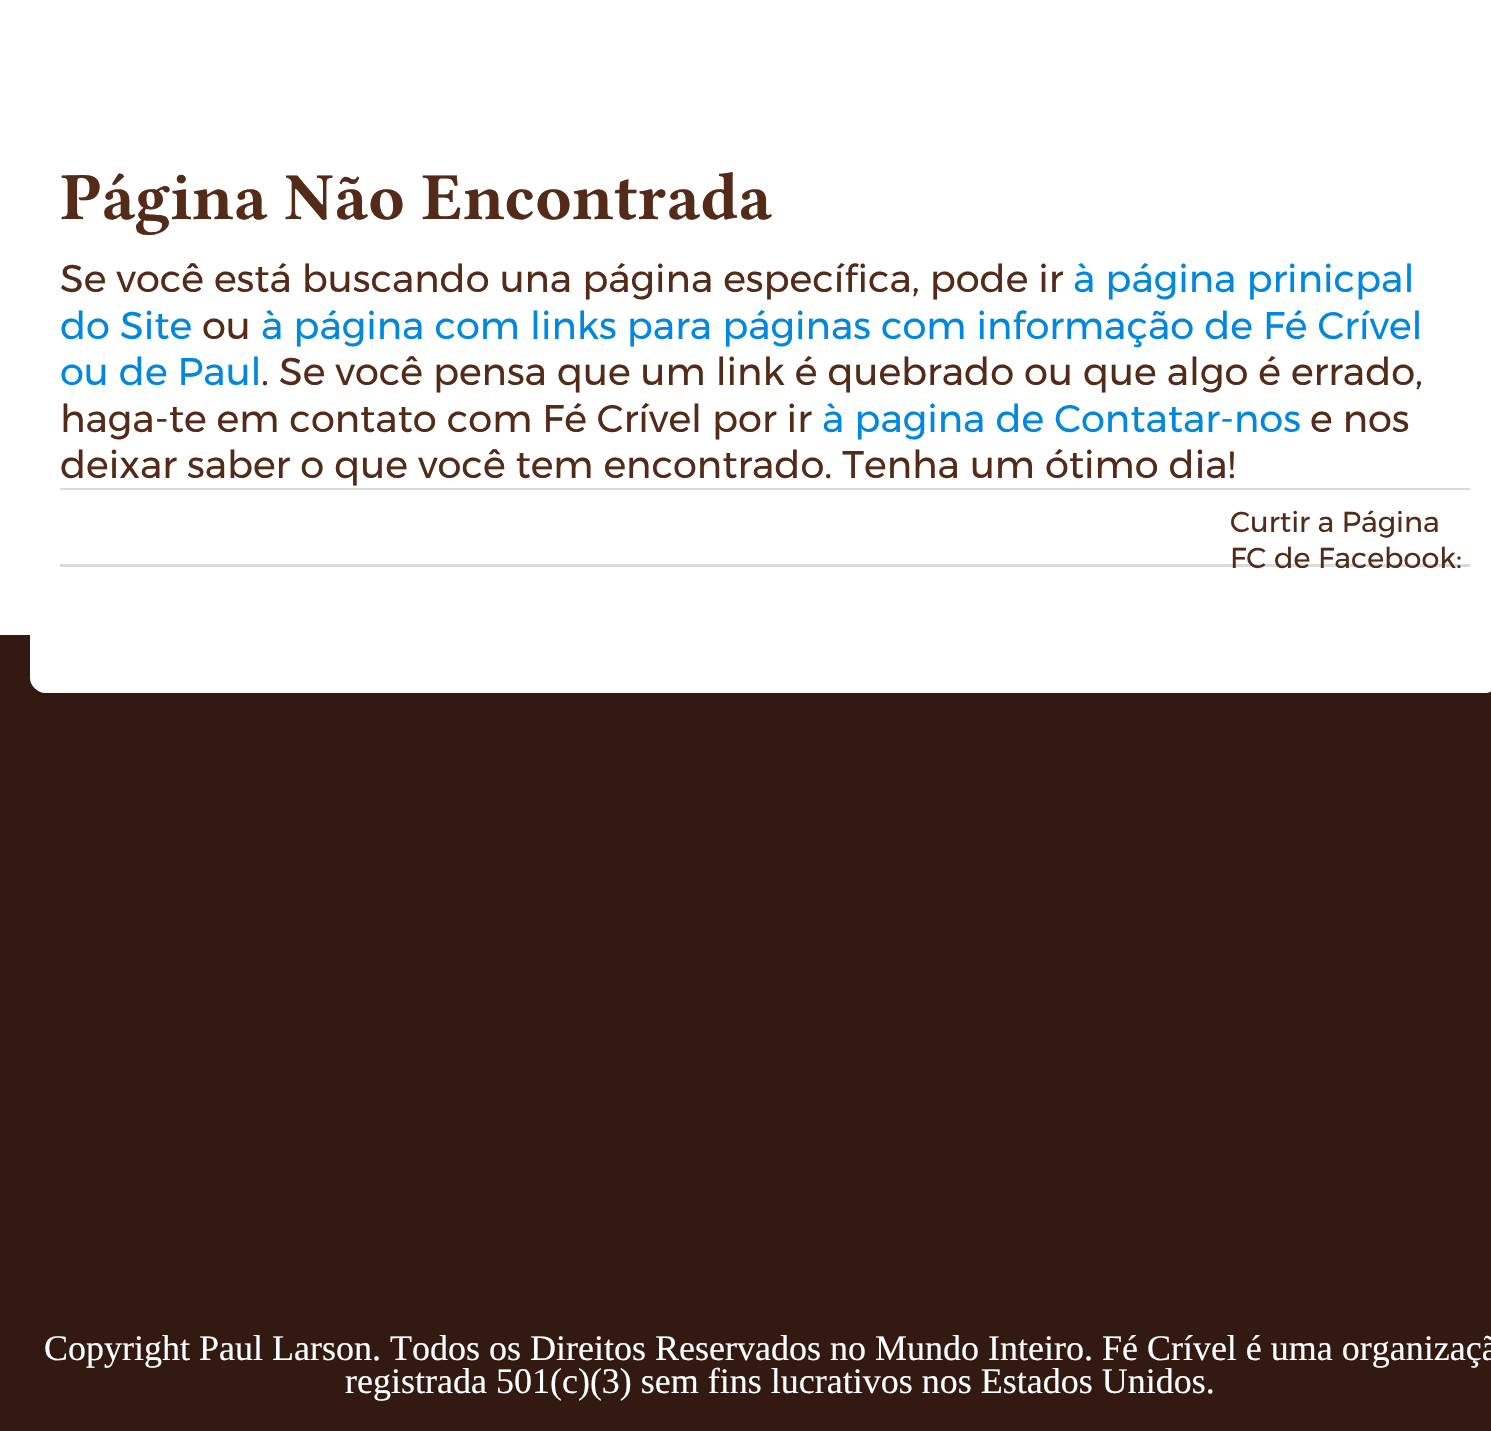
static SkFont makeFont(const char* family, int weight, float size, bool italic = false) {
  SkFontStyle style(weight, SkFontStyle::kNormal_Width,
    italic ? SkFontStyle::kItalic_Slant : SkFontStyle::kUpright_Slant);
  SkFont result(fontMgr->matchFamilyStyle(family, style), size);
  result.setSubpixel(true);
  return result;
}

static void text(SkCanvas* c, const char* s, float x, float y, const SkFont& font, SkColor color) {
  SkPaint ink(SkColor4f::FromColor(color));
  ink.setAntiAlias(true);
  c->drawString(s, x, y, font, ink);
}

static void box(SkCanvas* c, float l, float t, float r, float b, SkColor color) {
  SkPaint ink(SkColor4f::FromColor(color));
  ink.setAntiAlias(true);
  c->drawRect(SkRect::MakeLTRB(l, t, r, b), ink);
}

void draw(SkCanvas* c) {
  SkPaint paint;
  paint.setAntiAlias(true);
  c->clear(0xffffffff);
  box(c, 60, 564, 1470, 567, 0xffd8dadb);
  SkFont face1 = makeFont("Libertinus Serif", 700, 67.25f);
  text(c, "Página Não Encontrada", 60, 219, face1, 0xff542a18);
  box(c, 60, 488, 1470, 490, 0xffd8dadb);
  SkFont face2 = makeFont("Montserrat", 400, 38.4f);
  text(c, "Se você está buscando una página específica, pode ir", 60, 292, face2, 0xff542a18);
  text(c, "à página prinicpal", 1073, 292, face2, 0xff0087e0);
  text(c, "do Site", 60, 339, face2, 0xff0087e0);
  text(c, "ou", 202, 339, face2, 0xff542a18);
  text(c, "à página com links para páginas com informação de Fé Crível", 261, 339, face2, 0xff0087e0);
  text(c, "ou de Paul", 60, 385, face2, 0xff0087e0);
  text(c, ". Se você pensa que um link é quebrado ou que algo é errado,", 261, 385, face2, 0xff542a18);
  text(c, "haga-te em contato com Fé Crível por ir", 60, 432, face2, 0xff542a18);
  text(c, "à pagina de Contatar-nos", 822, 432, face2, 0xff0087e0);
  text(c, "e nos", 1310, 432, face2, 0xff542a18);
  text(c, "deixar saber o que você tem encontrado. Tenha um ótimo dia!", 60, 478, face2, 0xff542a18);
  SkFont face3 = makeFont("Montserrat", 400, 28.75f);
  text(c, "Curtir a Página", 1230, 532, face3, 0xff542a18);
  text(c, "FC de Facebook:", 1230, 568, face3, 0xff542a18);
  box(c, 0, 635, 1491, 1431, 0xff321a13);
  paint.setColor(0xffffffff);
  c->drawPath(SkPathBuilder().moveTo(30, 633).lineTo(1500, 633).lineTo(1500, 678).cubicTo(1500, 686, 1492, 693, 1485, 693).lineTo(45, 693).cubicTo(38, 693, 30, 686, 30, 678).close().detach(), paint);
  SkFont face4 = makeFont("Liberation Serif", 400, 36);
  text(c, "Copyright Paul Larson. Todos os Direitos Reservados no Mundo Inteiro. Fé Crível é uma organizaçã", 44, 1360, face4, 0xffffffff);
  text(c, "registrada 501(c)(3) sem fins lucrativos nos Estados Unidos.", 345, 1393, face4, 0xffffffff);
}
